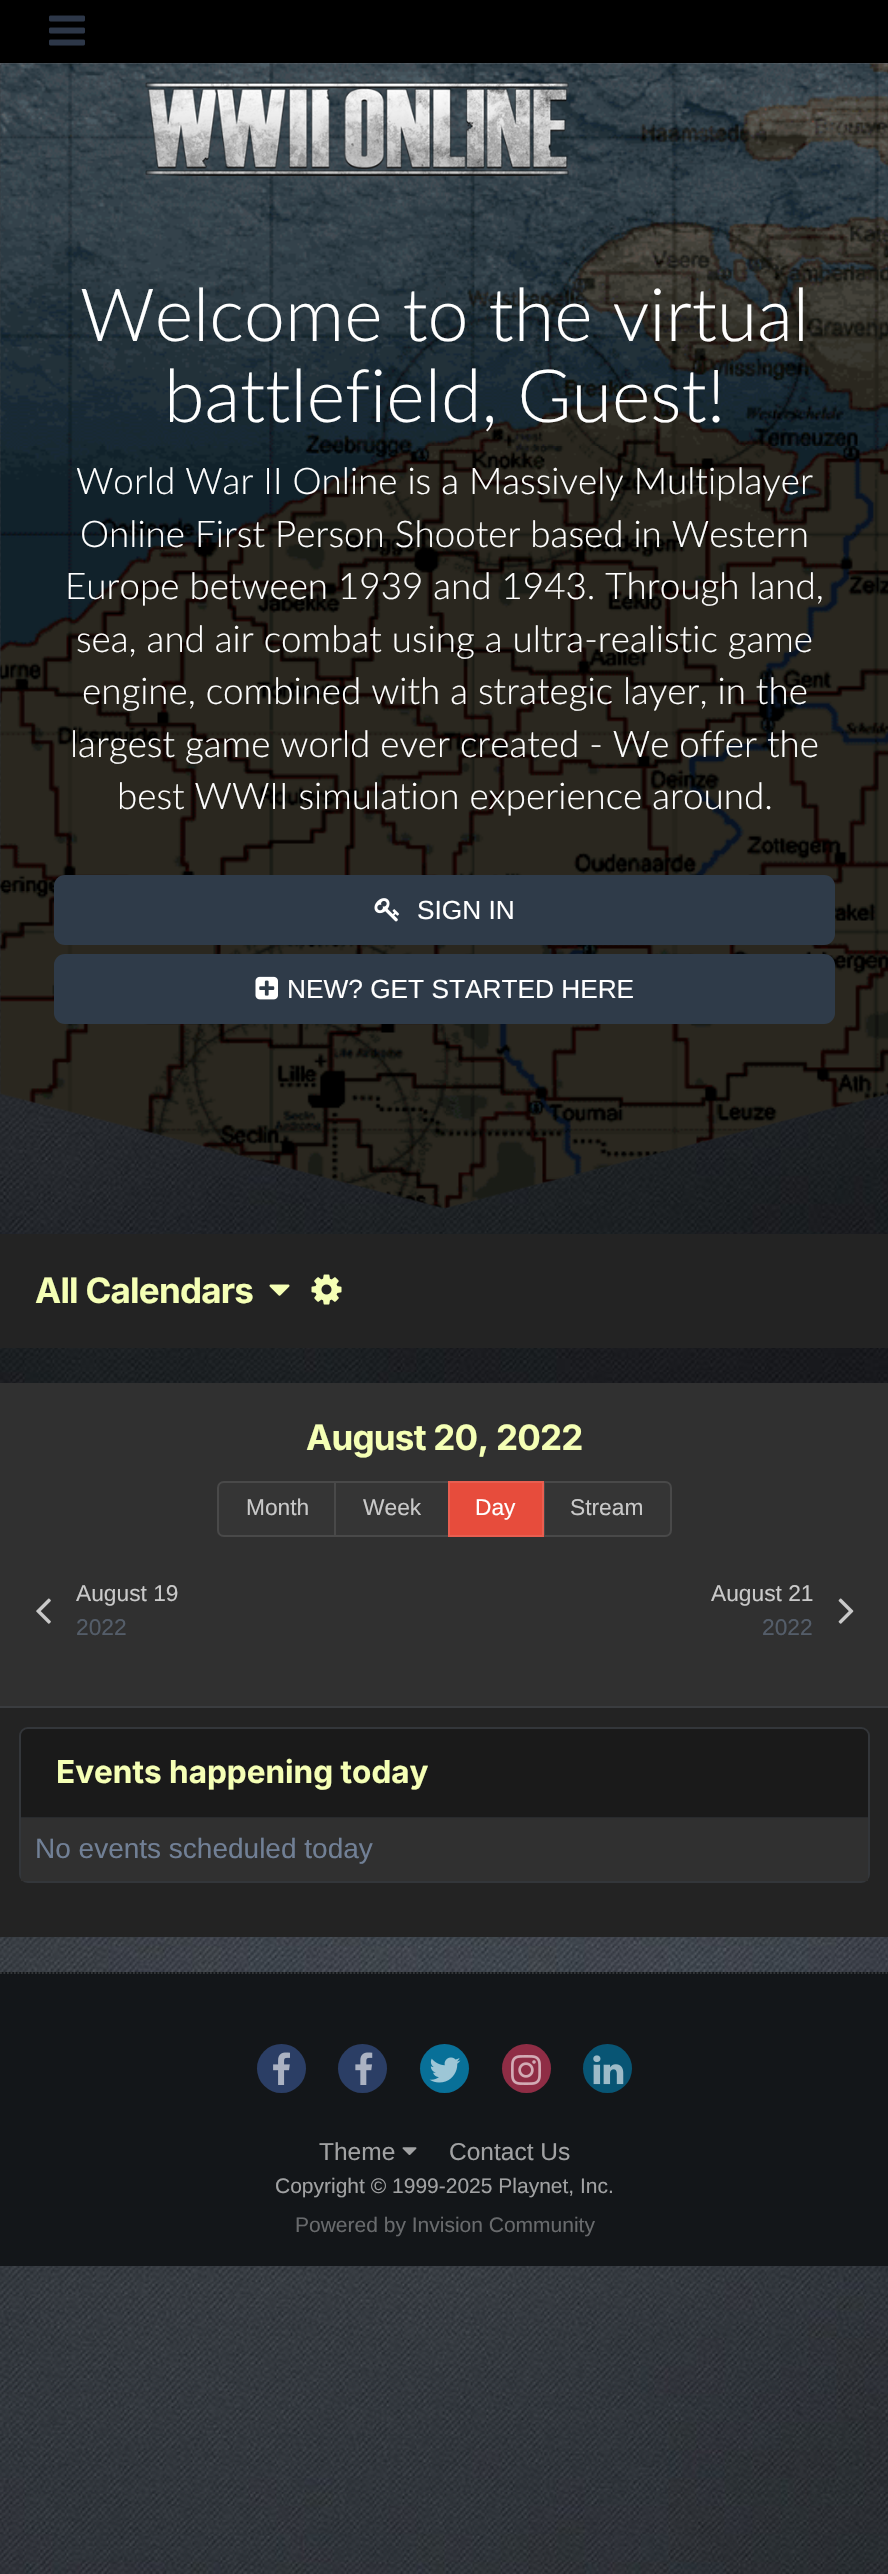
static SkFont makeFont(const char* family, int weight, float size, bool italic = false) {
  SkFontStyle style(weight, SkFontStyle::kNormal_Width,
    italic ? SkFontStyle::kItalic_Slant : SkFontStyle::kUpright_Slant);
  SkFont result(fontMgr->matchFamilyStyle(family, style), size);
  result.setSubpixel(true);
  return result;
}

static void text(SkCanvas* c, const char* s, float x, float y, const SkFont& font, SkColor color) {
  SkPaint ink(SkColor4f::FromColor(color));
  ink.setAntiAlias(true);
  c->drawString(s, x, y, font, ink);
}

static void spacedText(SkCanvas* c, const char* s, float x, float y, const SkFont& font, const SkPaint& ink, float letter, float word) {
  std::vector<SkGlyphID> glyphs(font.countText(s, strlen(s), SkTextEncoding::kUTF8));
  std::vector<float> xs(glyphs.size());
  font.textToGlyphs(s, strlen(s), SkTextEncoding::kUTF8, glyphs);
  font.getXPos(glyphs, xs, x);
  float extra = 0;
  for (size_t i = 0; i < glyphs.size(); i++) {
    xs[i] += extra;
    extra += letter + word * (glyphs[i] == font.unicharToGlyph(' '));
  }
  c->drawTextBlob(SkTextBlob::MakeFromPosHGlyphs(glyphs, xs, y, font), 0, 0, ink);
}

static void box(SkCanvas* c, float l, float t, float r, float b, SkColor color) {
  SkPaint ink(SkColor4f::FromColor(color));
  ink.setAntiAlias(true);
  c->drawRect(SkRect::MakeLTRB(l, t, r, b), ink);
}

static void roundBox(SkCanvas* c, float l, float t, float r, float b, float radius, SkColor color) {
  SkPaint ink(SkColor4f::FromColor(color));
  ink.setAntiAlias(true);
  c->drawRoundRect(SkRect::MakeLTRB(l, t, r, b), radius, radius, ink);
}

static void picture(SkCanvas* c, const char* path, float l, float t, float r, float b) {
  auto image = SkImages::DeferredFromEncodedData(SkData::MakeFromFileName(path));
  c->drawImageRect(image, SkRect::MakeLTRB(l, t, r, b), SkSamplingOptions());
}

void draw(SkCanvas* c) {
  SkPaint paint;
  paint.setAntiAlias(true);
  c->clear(0xffffffff);
  picture(c, "img_01.png", 0, 63, 888, 2574);
  box(c, 0, 63, 888, 65, 0x33ffffff);
  box(c, 0, 0, 888, 63, 0xff000000);
  picture(c, "img_02.png", 49, 15, 85, 46);
  picture(c, "img_03.png", 0, 63, 888, 1208);
  picture(c, "img_04.png", 145, 82, 569, 176);
  SkFont face1 = makeFont("Lato", 300, 73.5f);
  text(c, "Welcome to the virtual", 80, 341, face1, 0xffffffff);
  text(c, "battlefield, Guest!", 164, 422, face1, 0xffffffff);
  SkFont face2 = makeFont("Lato", 300, 36.75f);
  text(c, "World War II Online is a Massively Multiplayer", 76, 494, face2, 0xffffffff);
  text(c, "Online First Person Shooter based in Western", 80, 547, face2, 0xffffffff);
  text(c, "Europe between 1939 and 1943. Through land,", 65, 599, face2, 0xffffffff);
  text(c, "sea, and air combat using a ultra-realistic game", 76, 652, face2, 0xffffffff);
  text(c, "engine, combined with a strategic layer, in the", 82, 704, face2, 0xffffffff);
  text(c, "largest game world ever created - We offer the", 70, 757, face2, 0xffffffff);
  text(c, "best WWII simulation experience around.", 117, 809, face2, 0xffffffff);
  roundBox(c, 54, 875, 835, 945, 11, 0xff2f3b49);
  picture(c, "img_05.png", 374, 898, 400, 922);
  SkFont face3 = makeFont("Liberation Sans", 400, 26.25f);
  text(c, "SIGN IN", 417, 919, face3, 0xffffffff);
  roundBox(c, 54, 954, 835, 1024, 11, 0xff2f3b49);
  picture(c, "img_06.png", 255, 976, 278, 1000);
  text(c, "NEW? GET STARTED HERE", 287, 998, face3, 0xffffffff);
  box(c, 0, 1234, 888, 1348, 0xff232323);
  SkFont face4 = makeFont("Inter", 700, 35);
  paint.setColor(0xfff5ffb5);
  spacedText(c, "All Calendars", 35, 1303, face4, paint, -0.75f, 0);
  picture(c, "img_07.png", 269, 1284, 290, 1296);
  picture(c, "img_08.png", 311, 1274, 342, 1305);
  box(c, 0, 1708, 888, 1937, 0xff232323);
  box(c, 0, 1383, 888, 1706, 0xff303030);
  box(c, 0, 1706, 888, 1708, 0xff3a3c3f);
  spacedText(c, "August 20, 2022", 306, 1450, face4, paint, -0.75f, 0);
  paint.setColor(0xff353535);
  c->drawPath(SkPathBuilder().moveTo(224, 1482).lineTo(335, 1482).lineTo(335, 1536).lineTo(224, 1536).cubicTo(220.5f, 1536, 218, 1533.5f, 218, 1530).lineTo(218, 1488).cubicTo(218, 1484.5f, 220.5f, 1482, 224, 1482).close().detach(), paint);
  paint.setStyle(SkPaint::kStroke_Style);
  paint.setStrokeWidth(2);
  paint.setColor(0xff494949);
  c->drawPath(SkPathBuilder().moveTo(224, 1482).lineTo(335, 1482).lineTo(335, 1536).lineTo(224, 1536).cubicTo(220.5f, 1536, 218, 1533.5f, 218, 1530).lineTo(218, 1488).cubicTo(218, 1484.5f, 220.5f, 1482, 224, 1482).close().detach(), paint);
  SkFont face5 = makeFont("Liberation Sans", 400, 22.75f);
  text(c, "Month", 246, 1515, face5, 0xffc9c9c9);
  paint.setStyle(SkPaint::kFill_Style);
  paint.setColor(0xff353535);
  c->drawRect(SkRect::MakeLTRB(335, 1482, 449, 1536), paint);
  paint.setStyle(SkPaint::kStroke_Style);
  paint.setColor(0xff494949);
  c->drawRect(SkRect::MakeLTRB(335, 1482, 449, 1536), paint);
  text(c, "Week", 363, 1515, face5, 0xffc9c9c9);
  paint.setStyle(SkPaint::kFill_Style);
  paint.setColor(0xff353535);
  c->drawPath(SkPathBuilder().moveTo(544, 1482).lineTo(665, 1482).cubicTo(668.5f, 1482, 671, 1484.5f, 671, 1488).lineTo(671, 1530).cubicTo(671, 1533.5f, 668.5f, 1536, 665, 1536).lineTo(544, 1536).close().detach(), paint);
  paint.setStyle(SkPaint::kStroke_Style);
  paint.setColor(0xff494949);
  c->drawPath(SkPathBuilder().moveTo(544, 1482).lineTo(665, 1482).cubicTo(668.5f, 1482, 671, 1484.5f, 671, 1488).lineTo(671, 1530).cubicTo(671, 1533.5f, 668.5f, 1536, 665, 1536).lineTo(544, 1536).close().detach(), paint);
  paint.setStyle(SkPaint::kFill_Style);
  paint.setColor(0xffe74c3c);
  c->drawRect(SkRect::MakeLTRB(449, 1482, 543, 1536), paint);
  paint.setStyle(SkPaint::kStroke_Style);
  paint.setColor(0xffe95e50);
  c->drawRect(SkRect::MakeLTRB(449, 1482, 543, 1536), paint);
  text(c, "Day", 475, 1515, face5, 0xffffffff);
  text(c, "Stream", 570, 1515, face5, 0xffc9c9c9);
  text(c, "August 19", 76, 1601, face5, 0xffc9c9c9);
  picture(c, "img_09.png", 36, 1598, 51, 1624);
  text(c, "2022", 76, 1635, face5, 0xff545d69);
  text(c, "August 21", 711, 1601, face5, 0xffc9c9c9);
  picture(c, "img_10.png", 838, 1598, 854, 1624);
  text(c, "2022", 762, 1635, face5, 0xff545d69);
  paint.setColor(0x33718096);
  c->drawRoundRect(SkRect::MakeLTRB(20, 1728, 869, 1882), 8, 8, paint);
  paint.setStyle(SkPaint::kFill_Style);
  paint.setColor(0xff1a1a1a);
  c->drawPath(SkPathBuilder().moveTo(28, 1729).lineTo(861, 1729).cubicTo(865, 1729, 868, 1732, 868, 1736).lineTo(868, 1818).lineTo(21, 1818).lineTo(21, 1736).cubicTo(21, 1732, 24, 1729, 28, 1729).close().detach(), paint);
  box(c, 21, 1817, 868, 1818, 0x26718096);
  SkFont face6 = makeFont("Inter", 700, 31.5f);
  text(c, "Events happening today", 56, 1783, face6, 0xfff5ffb5);
  box(c, 21, 1818, 868, 1881, 0xff303030);
  SkFont face7 = makeFont("Liberation Sans", 400, 28);
  text(c, "No events scheduled today", 35, 1858, face7, 0xff718096);
  box(c, 0, 1972, 888, 2266, 0xff131619);
  paint.setStyle(SkPaint::kStroke_Style);
  paint.setStrokeWidth(1.8f);
  paint.setColor(0xff323537);
  paint.setPathEffect(SkDashPathEffect::Make({{1.75f, 1.75f}}, 0));
  c->drawPath(SkPathBuilder().moveTo(0, 1973).lineTo(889, 1973).detach(), paint);
  paint.setPathEffect(nullptr);
  paint.setStyle(SkPaint::kFill_Style);
  paint.setColor(0xff2b3e65);
  c->drawCircle(281.5f, 2068.5f, 24.5f, paint);
  picture(c, "img_11.png", 273, 2052, 290, 2085);
  c->drawCircle(362.5f, 2068.5f, 24.5f, paint);
  picture(c, "img_12.png", 355, 2052, 373, 2085);
  paint.setColor(0xff087098);
  c->drawCircle(444.5f, 2068.5f, 24.5f, paint);
  picture(c, "img_13.png", 429, 2057, 461, 2083);
  paint.setColor(0xff8f2d45);
  c->drawCircle(526.5f, 2068.5f, 24.5f, paint);
  picture(c, "img_14.png", 511, 2055, 541, 2085);
  paint.setColor(0xff085574);
  c->drawCircle(607.5f, 2068.5f, 24.5f, paint);
  picture(c, "img_15.png", 593, 2055, 624, 2085);
  SkFont face8 = makeFont("Liberation Sans", 400, 24.5f);
  text(c, "Theme", 319, 2160, face8, 0xffa1a2a3);
  picture(c, "img_16.png", 402, 2147, 417, 2155);
  text(c, "Contact Us", 449, 2160, face8, 0xffa1a2a3);
  SkFont face9 = makeFont("Liberation Sans", 400, 21);
  text(c, "Copyright © 1999-2025 Playnet, Inc.", 275, 2193, face9, 0xffa1a2a3);
  text(c, "Powered by Invision Community", 295, 2232, face9, 0xff686a6c);
}
